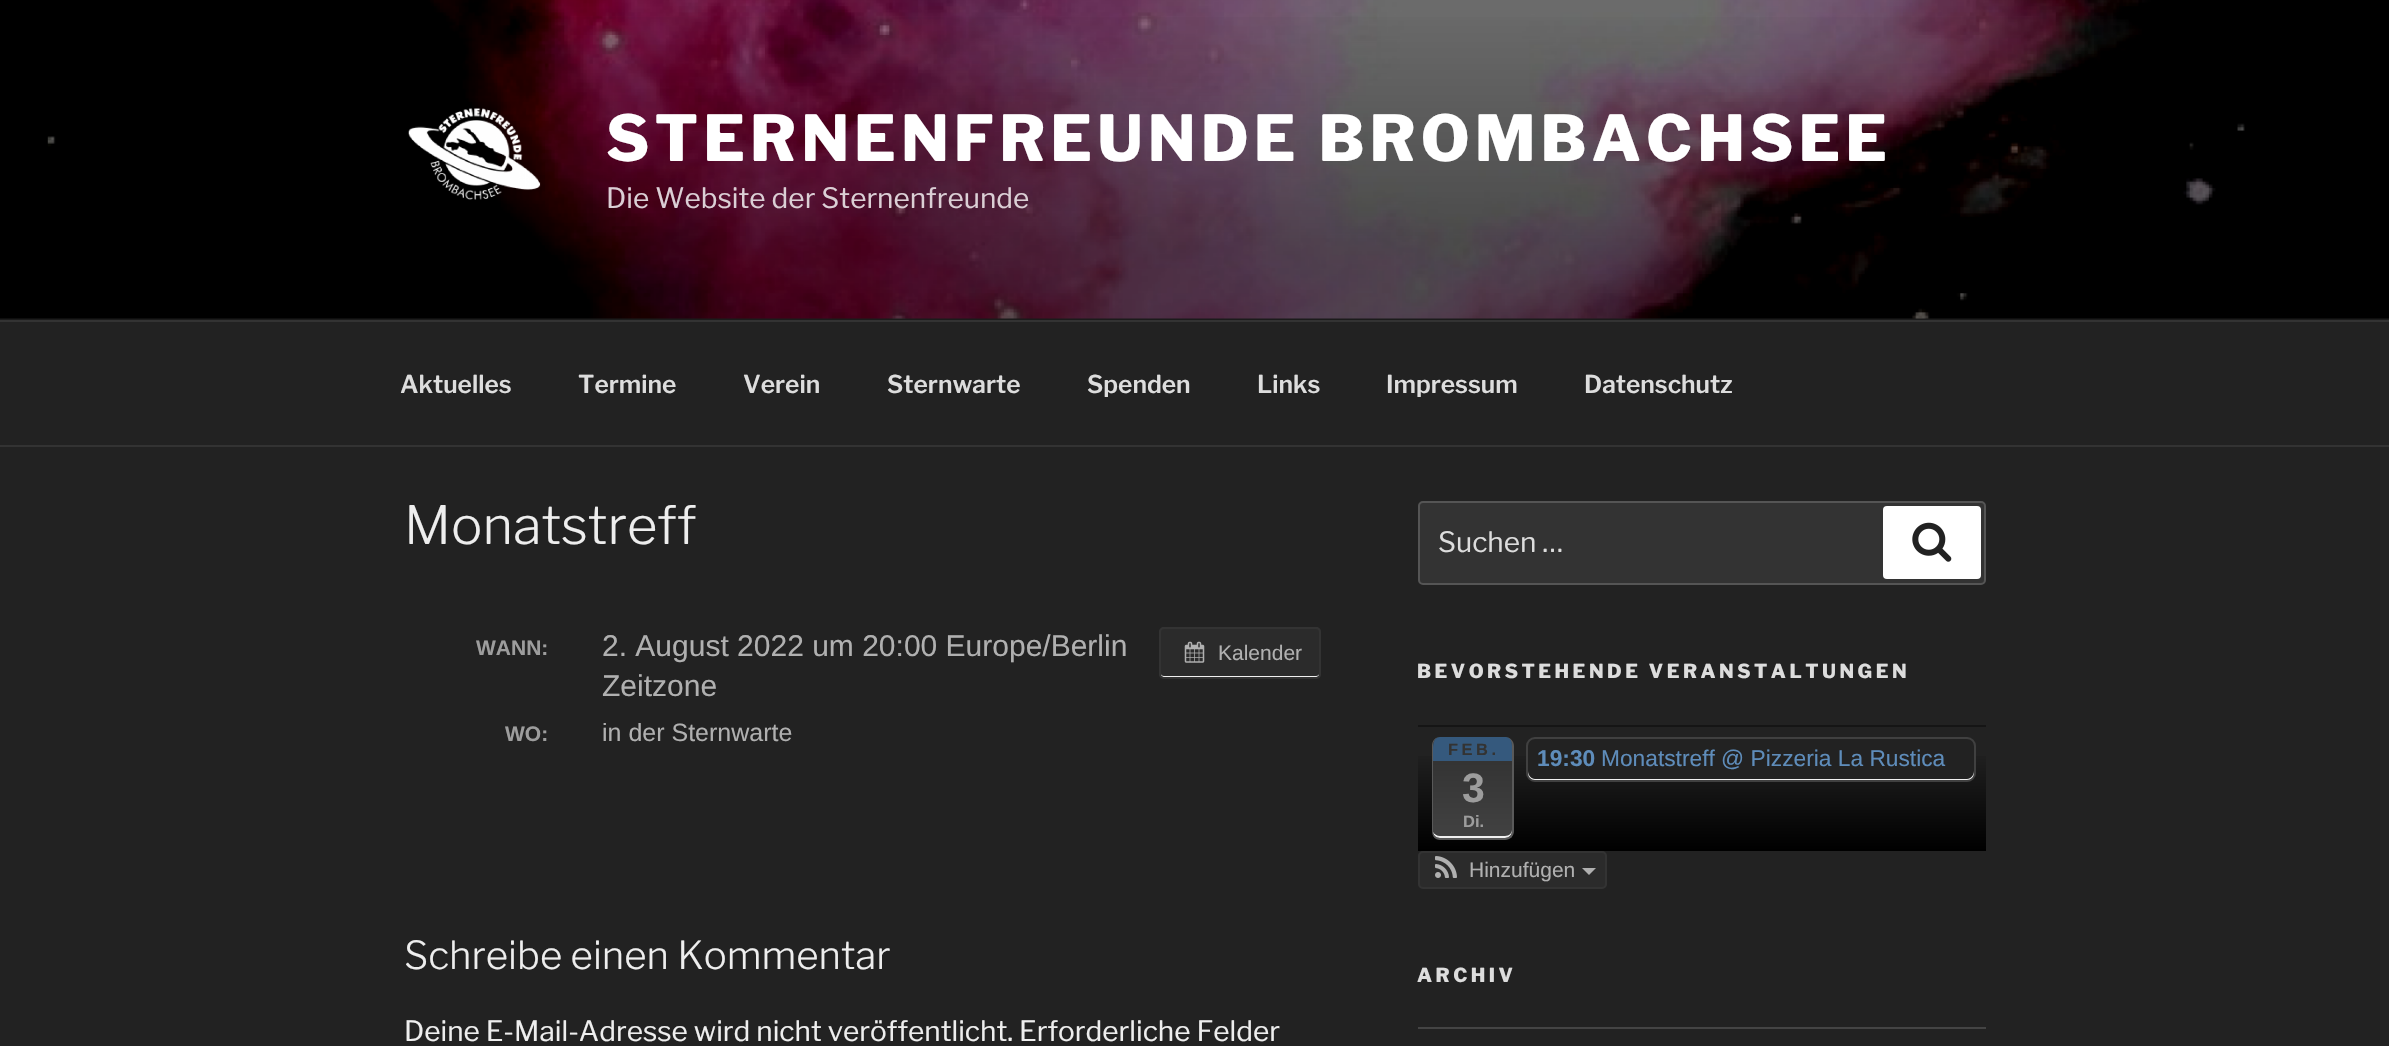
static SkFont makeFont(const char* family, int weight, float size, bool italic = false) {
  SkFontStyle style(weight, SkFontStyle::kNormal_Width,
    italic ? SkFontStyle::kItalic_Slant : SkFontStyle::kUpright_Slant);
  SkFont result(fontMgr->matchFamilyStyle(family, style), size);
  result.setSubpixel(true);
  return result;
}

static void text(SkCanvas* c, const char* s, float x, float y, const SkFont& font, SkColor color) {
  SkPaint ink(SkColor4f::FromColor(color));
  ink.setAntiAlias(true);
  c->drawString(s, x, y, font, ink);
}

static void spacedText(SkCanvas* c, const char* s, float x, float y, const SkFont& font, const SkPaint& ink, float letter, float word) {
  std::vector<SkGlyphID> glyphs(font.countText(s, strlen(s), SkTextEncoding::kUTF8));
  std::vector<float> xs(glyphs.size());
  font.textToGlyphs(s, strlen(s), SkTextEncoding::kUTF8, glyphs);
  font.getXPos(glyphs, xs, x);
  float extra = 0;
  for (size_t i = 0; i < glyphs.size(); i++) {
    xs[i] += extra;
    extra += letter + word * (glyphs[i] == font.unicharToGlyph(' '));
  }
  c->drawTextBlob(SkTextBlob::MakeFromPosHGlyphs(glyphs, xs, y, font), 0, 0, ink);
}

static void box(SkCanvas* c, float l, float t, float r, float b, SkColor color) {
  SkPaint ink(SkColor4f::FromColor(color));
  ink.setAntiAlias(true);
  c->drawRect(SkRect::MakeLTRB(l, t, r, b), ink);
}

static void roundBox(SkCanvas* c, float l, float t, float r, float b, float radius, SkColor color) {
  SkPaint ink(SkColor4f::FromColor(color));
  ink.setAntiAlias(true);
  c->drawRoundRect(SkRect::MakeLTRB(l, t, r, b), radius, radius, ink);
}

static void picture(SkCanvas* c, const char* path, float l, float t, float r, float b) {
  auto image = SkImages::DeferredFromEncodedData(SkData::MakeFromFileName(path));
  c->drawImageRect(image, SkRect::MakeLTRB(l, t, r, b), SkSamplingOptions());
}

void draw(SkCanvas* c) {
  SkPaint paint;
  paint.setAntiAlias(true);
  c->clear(0xff222222);
  box(c, 0, 318, 2389, 320, 0xff262626);
  picture(c, "img_01.png", 0, 0, 2389, 319);
  {
    const SkColor colors[] = {0x00000000, 0x4d000000, 0x4d000000};
    const float stops[] = {0, 0.75f, 1};
    const SkPoint ends[] = {{1195, 0}, {1195, 320}};
    paint.setShader(SkGradientShader::MakeLinear(ends, colors, stops, 3, SkTileMode::kClamp));
    paint.setAlpha(255);
  }
  c->drawRect(SkRect::MakeLTRB(0, 17, 2389, 320), paint);
  picture(c, "img_02.png", 408, 108, 541, 200);
  SkFont face1 = makeFont("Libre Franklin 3", 100, 63);
  paint.setShader(nullptr);
  paint.setColor(0xffffffff);
  spacedText(c, "STERNENFREUNDE BROMBACHSEE", 606, 161, face1, paint, 5.05f, 0);
  SkFont face2 = makeFont("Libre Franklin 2", 100, 28);
  text(c, "Die Website der Sternenfreunde", 606, 208, face2, 0xffdbcfd5);
  box(c, 0, 320, 2389, 322, 0xff333333);
  box(c, 0, 445, 2389, 447, 0xff333333);
  SkFont face3 = makeFont("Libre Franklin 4", 100, 24.5f);
  text(c, "Aktuelles", 400, 393, face3, 0xffdddddd);
  text(c, "Termine", 578, 393, face3, 0xffdddddd);
  text(c, "Verein", 743, 393, face3, 0xffdddddd);
  text(c, "Sternwarte", 887, 393, face3, 0xffdddddd);
  text(c, "Spenden", 1087, 393, face3, 0xffdddddd);
  text(c, "Links", 1257, 393, face3, 0xffdddddd);
  text(c, "Impressum", 1386, 393, face3, 0xffdddddd);
  text(c, "Datenschutz", 1584, 393, face3, 0xffdddddd);
  SkFont face4 = makeFont("Libre Franklin", 100, 52.5f);
  text(c, "Monatstreff", 404, 544, face4, 0xffeeeeee);
  SkFont face5 = makeFont("Liberation Sans", 700, 21);
  text(c, "WANN:", 476, 655, face5, 0xff9d9d9d);
  SkFont face6 = makeFont("Liberation Sans", 400, 30);
  text(c, "2. August 2022 um 20:00 Europe/Berlin", 602, 656, face6, 0xffb0b0b0);
  text(c, "Zeitzone", 602, 696, face6, 0xffb0b0b0);
  text(c, "WO:", 505, 741, face5, 0xff9d9d9d);
  SkFont face7 = makeFont("Liberation Sans", 400, 25);
  text(c, "in der Sternwarte", 602, 741, face7, 0xffb0b0b0);
  roundBox(c, 1159, 627, 1321, 679, 5, 0xff2b2b2b);
  paint.setColor(0xfff0f0f0);
  c->drawPath(SkPathBuilder().moveTo(1160, 672).cubicTo(1160, 674, 1161, 676, 1163, 677).lineTo(1317, 677).cubicTo(1319, 676, 1320, 674, 1320, 672).cubicTo(1320, 674, 1318, 676, 1316, 676).lineTo(1164, 676).cubicTo(1162, 676, 1160, 674, 1160, 672).close().detach(), paint);
  paint.setStyle(SkPaint::kStroke_Style);
  paint.setStrokeWidth(2);
  paint.setColor(0xff333333);
  c->drawRoundRect(SkRect::MakeLTRB(1160, 628, 1320, 678), 4, 4, paint);
  picture(c, "img_03.png", 1184, 641, 1205, 663);
  SkFont face8 = makeFont("Liberation Sans", 400, 21);
  text(c, "Kalender", 1218, 660, face8, 0xffb0b0b0);
  SkFont face9 = makeFont("Libre Franklin", 100, 38.5f);
  text(c, "Schreibe einen Kommentar", 404, 969, face9, 0xffeeeeee);
  text(c, "Deine E-Mail-Adresse wird nicht veröffentlicht. Erforderliche Felder", 404, 1041, face2, 0xffeeeeee);
  paint.setStyle(SkPaint::kFill_Style);
  c->drawRoundRect(SkRect::MakeLTRB(1419, 502, 1985, 584), 4, 4, paint);
  paint.setStyle(SkPaint::kStroke_Style);
  paint.setColor(0xff555555);
  c->drawRoundRect(SkRect::MakeLTRB(1419, 502, 1985, 584), 4, 4, paint);
  text(c, "Suchen …", 1438, 552, face2, 0xffdddddd);
  roundBox(c, 1883, 506, 1981, 579, 4, 0xffffffff);
  picture(c, "img_04.png", 1912, 522, 1952, 562);
  SkFont face10 = makeFont("Libre Franklin 3", 100, 19.25f);
  paint.setStyle(SkPaint::kFill_Style);
  paint.setColor(0xffdddddd);
  spacedText(c, "BEVORSTEHENDE VERANSTALTUNGEN", 1417, 678, face10, paint, 3.5f, 0);
  {
    const SkColor colors[] = {0xff222222, 0xff222222, 0xff000000};
    const float stops[] = {0, 0.18f, 1};
    const SkPoint ends[] = {{1702, 726}, {1702, 851}};
    paint.setShader(SkGradientShader::MakeLinear(ends, colors, stops, 3, SkTileMode::kClamp));
    paint.setAlpha(255);
  }
  c->drawRect(SkRect::MakeLTRB(1418, 756, 1986, 851), paint);
  box(c, 1418, 725, 1986, 727, 0xff151515);
  c->save();
  c->clipPath(SkPathBuilder().moveTo(1441, 737).lineTo(1505, 737).cubicTo(1510, 737, 1514, 741, 1514, 746).lineTo(1514, 831).cubicTo(1514, 836, 1510, 840, 1505, 840).lineTo(1441, 840).cubicTo(1436, 840, 1432, 836, 1432, 831).lineTo(1432, 746).cubicTo(1432, 741, 1436, 737, 1441, 737).close().detach(), true);
  {
    const SkColor colors[] = {0xff333333, 0xff333333, 0xff424242};
    const float stops[] = {0, 0.2f, 1};
    const SkPoint ends[] = {{1473, 737}, {1473, 838}};
    paint.setShader(SkGradientShader::MakeLinear(ends, colors, stops, 3, SkTileMode::kClamp));
    paint.setAlpha(255);
  }
  c->drawRect(SkRect::MakeLTRB(1433, 737, 1512, 838), paint);
  c->restore();
  paint.setShader(nullptr);
  paint.setColor(0xfff0f0f0);
  c->drawPath(SkPathBuilder().moveTo(1433, 832).cubicTo(1433, 835, 1436, 838, 1440, 838).lineTo(1505, 838).cubicTo(1509, 838, 1512, 835, 1512, 831).lineTo(1512, 830).cubicTo(1512, 833, 1509, 836, 1505, 836).lineTo(1440, 836).cubicTo(1437, 836, 1434, 834, 1433, 832).close().detach(), paint);
  paint.setColor(0xff595959);
  c->drawPath(SkPathBuilder(SkPathFillType::kEvenOdd).moveTo(1440, 737).lineTo(1505, 737).cubicTo(1510, 737, 1514, 741, 1514, 746).lineTo(1514, 831).cubicTo(1514, 836, 1510, 840, 1505, 840).lineTo(1440, 840).cubicTo(1435, 840, 1432, 836, 1432, 831).lineTo(1432, 746).cubicTo(1432, 741, 1435, 737, 1440, 737).close().moveTo(1440, 737).lineTo(1505, 737).cubicTo(1509, 737, 1512, 741, 1512, 746).lineTo(1512, 831).cubicTo(1512, 835, 1509, 838, 1505, 838).lineTo(1440, 838).cubicTo(1436, 838, 1433, 835, 1433, 831).lineTo(1433, 746).cubicTo(1433, 741, 1436, 737, 1440, 737).close().detach(), paint);
  paint.setColor(0xff35597d);
  c->drawPath(SkPathBuilder().moveTo(1440, 737).lineTo(1506, 737).cubicTo(1513, 738, 1512, 746, 1512, 751).lineTo(1512, 761).lineTo(1433, 761).lineTo(1433, 751).cubicTo(1433, 746, 1433, 737, 1440, 737).close().detach(), paint);
  SkFont face11 = makeFont("Liberation Sans", 700, 16.5f);
  paint.setColor(0xff333333);
  spacedText(c, "FEB.", 1448, 755, face11, paint, 3.5f, 0);
  SkFont face12 = makeFont("Liberation Sans", 700, 41);
  text(c, "3", 1462, 802, face12, 0xff9d9d9d);
  text(c, "Di.", 1463, 827, face11, 0xff9d9d9d);
  roundBox(c, 1526, 737, 1976, 782, 9, 0xff222222);
  paint.setColor(0xfff0f0f0);
  c->drawPath(SkPathBuilder().moveTo(1528, 771).lineTo(1528, 774).cubicTo(1528, 778, 1531, 781, 1535, 781).lineTo(1967, 781).cubicTo(1971, 781, 1974, 778, 1974, 774).lineTo(1974, 771).cubicTo(1974, 775, 1971, 779, 1967, 779).lineTo(1535, 779).cubicTo(1531, 779, 1528, 775, 1528, 771).close().detach(), paint);
  paint.setStyle(SkPaint::kStroke_Style);
  paint.setColor(0xff404040);
  c->drawRoundRect(SkRect::MakeLTRB(1527, 738, 1975, 781), 8, 8, paint);
  SkFont face13 = makeFont("Liberation Sans", 700, 22.75f);
  text(c, "19:30", 1537, 766, face13, 0xff5e8cba);
  SkFont face14 = makeFont("Liberation Sans", 400, 22.75f);
  text(c, "Monatstreff @ Pizzeria La Rustica", 1601, 766, face14, 0xff5e8cba);
  paint.setStyle(SkPaint::kFill_Style);
  paint.setColor(0xff2b2b2b);
  c->drawRoundRect(SkRect::MakeLTRB(1419, 852, 1606, 888), 4, 4, paint);
  paint.setStyle(SkPaint::kStroke_Style);
  paint.setColor(0xff333333);
  c->drawRoundRect(SkRect::MakeLTRB(1419, 852, 1606, 888), 4, 4, paint);
  picture(c, "img_05.png", 1435, 856, 1457, 878);
  text(c, "Hinzufügen", 1469, 877, face8, 0xffb0b0b0);
  paint.setStyle(SkPaint::kFill_Style);
  paint.setColor(0xffb0b0b0);
  c->drawPath(SkPathBuilder().moveTo(1582, 868).lineTo(1596, 868).lineTo(1589, 875).close().detach(), paint);
  paint.setColor(0xffdddddd);
  spacedText(c, "ARCHIV", 1417, 982, face10, paint, 3.5f, 0);
  box(c, 1418, 1027, 1986, 1029, 0xff444444);
}
